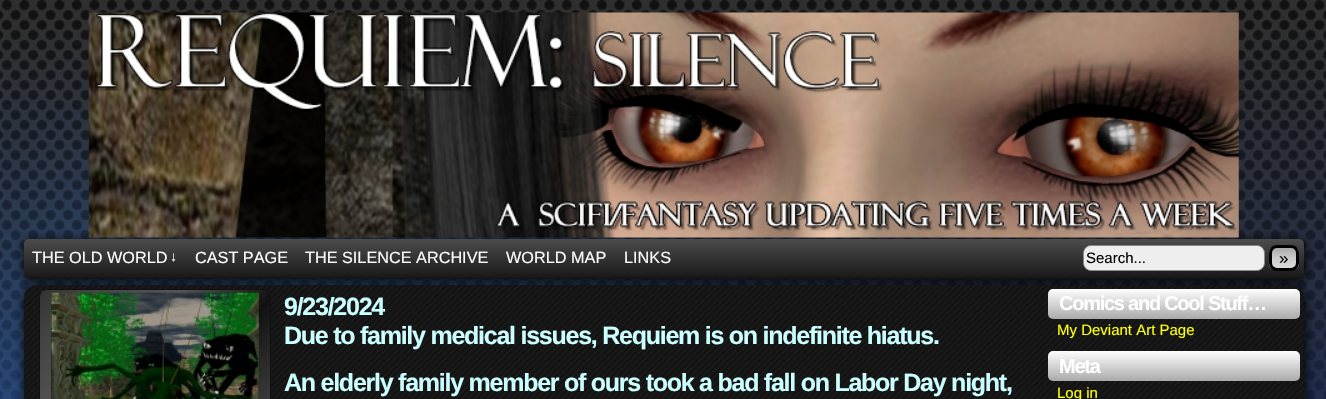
static SkFont makeFont(const char* family, int weight, float size, bool italic = false) {
  SkFontStyle style(weight, SkFontStyle::kNormal_Width,
    italic ? SkFontStyle::kItalic_Slant : SkFontStyle::kUpright_Slant);
  SkFont result(fontMgr->matchFamilyStyle(family, style), size);
  result.setSubpixel(true);
  return result;
}

static void text(SkCanvas* c, const char* s, float x, float y, const SkFont& font, SkColor color) {
  SkPaint ink(SkColor4f::FromColor(color));
  ink.setAntiAlias(true);
  c->drawString(s, x, y, font, ink);
}

static void spacedText(SkCanvas* c, const char* s, float x, float y, const SkFont& font, const SkPaint& ink, float letter, float word) {
  std::vector<SkGlyphID> glyphs(font.countText(s, strlen(s), SkTextEncoding::kUTF8));
  std::vector<float> xs(glyphs.size());
  font.textToGlyphs(s, strlen(s), SkTextEncoding::kUTF8, glyphs);
  font.getXPos(glyphs, xs, x);
  float extra = 0;
  for (size_t i = 0; i < glyphs.size(); i++) {
    xs[i] += extra;
    extra += letter + word * (glyphs[i] == font.unicharToGlyph(' '));
  }
  c->drawTextBlob(SkTextBlob::MakeFromPosHGlyphs(glyphs, xs, y, font), 0, 0, ink);
}

static void box(SkCanvas* c, float l, float t, float r, float b, SkColor color) {
  SkPaint ink(SkColor4f::FromColor(color));
  ink.setAntiAlias(true);
  c->drawRect(SkRect::MakeLTRB(l, t, r, b), ink);
}

static void roundBox(SkCanvas* c, float l, float t, float r, float b, float radius, SkColor color) {
  SkPaint ink(SkColor4f::FromColor(color));
  ink.setAntiAlias(true);
  c->drawRoundRect(SkRect::MakeLTRB(l, t, r, b), radius, radius, ink);
}

static void picture(SkCanvas* c, const char* path, float l, float t, float r, float b) {
  auto image = SkImages::DeferredFromEncodedData(SkData::MakeFromFileName(path));
  c->drawImageRect(image, SkRect::MakeLTRB(l, t, r, b), SkSamplingOptions());
}

void draw(SkCanvas* c) {
  SkPaint paint;
  paint.setAntiAlias(true);
  c->clear(0xffffffff);
  picture(c, "img_01.png", 0, 31, 1326, 399);
  picture(c, "img_02.png", 0, 0, 1326, 399);
  paint.setColor(0xff000000);
  paint.setMaskFilter(SkMaskFilter::MakeBlur(kNormal_SkBlurStyle, 6));
  c->drawRoundRect(SkRect::MakeLTRB(25, 241, 1305, 281), 5, 5, paint);
  paint.setMaskFilter(nullptr);
  picture(c, "img_03.png", 88, 12, 1239, 238);
  {
    const SkColor colors[] = {0xff4c4c4c, 0xff1c1c1c, 0xff131313};
    const float stops[] = {0, 0.91f, 1};
    const SkPoint ends[] = {{664, 239}, {664, 279}};
    paint.setShader(SkGradientShader::MakeLinear(ends, colors, stops, 3, SkTileMode::kClamp));
    paint.setAlpha(255);
  }
  c->drawRoundRect(SkRect::MakeLTRB(24, 239, 1304, 279), 5, 5, paint);
  SkFont face1 = makeFont("Liberation Sans", 400, 16.25f);
  text(c, "THE OLD WORLD", 32, 263, face1, 0xffffffff);
  SkFont face2 = makeFont("Liberation Sans", 400, 14);
  text(c, "↓", 170, 261, face2, 0xffffffff);
  text(c, "CAST PAGE", 195, 263, face1, 0xffffffff);
  text(c, "THE SILENCE ARCHIVE", 305, 263, face1, 0xffffffff);
  text(c, "WORLD MAP", 506, 263, face1, 0xffffffff);
  text(c, "LINKS", 624, 263, face1, 0xffffffff);
  paint.setShader(nullptr);
  paint.setColor(0xff000000);
  paint.setMaskFilter(SkMaskFilter::MakeBlur(kNormal_SkBlurStyle, 6));
  c->drawRoundRect(SkRect::MakeLTRB(25, 288, 1305, 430), 13, 13, paint);
  paint.setMaskFilter(nullptr);
  paint.setColor(0xffeeeeee);
  c->drawRoundRect(SkRect::MakeLTRB(1083.5f, 245.5f, 1264.5f, 270.5f), 7.5f, 7.5f, paint);
  paint.setStyle(SkPaint::kStroke_Style);
  paint.setStrokeWidth(1);
  paint.setColor(0xff888888);
  c->drawRoundRect(SkRect::MakeLTRB(1083.5f, 245.5f, 1264.5f, 270.5f), 7.5f, 7.5f, paint);
  SkFont face3 = makeFont("Liberation Sans", 400, 15);
  text(c, "Search...", 1086, 263, face3, 0xff000000);
  c->save();
  c->clipPath(SkPathBuilder().moveTo(1277, 245).lineTo(1291, 245).cubicTo(1295.5f, 245, 1299, 248.5f, 1299, 253).lineTo(1299, 263).cubicTo(1299, 267.5f, 1295.5f, 271, 1291, 271).lineTo(1277, 271).cubicTo(1272.5f, 271, 1269, 267.5f, 1269, 263).lineTo(1269, 253).cubicTo(1269, 248.5f, 1272.5f, 245, 1277, 245).close().detach(), true);
  paint.setStyle(SkPaint::kFill_Style);
  {
    const SkColor colors[] = {0xffaaaaaa, 0xffcccccc, 0xffdddddd};
    const float stops[] = {0, 0.5f, 1};
    const SkPoint ends[] = {{1284, 248}, {1284, 269}};
    paint.setShader(SkGradientShader::MakeLinear(ends, colors, stops, 3, SkTileMode::kClamp));
    paint.setAlpha(255);
  }
  c->drawRect(SkRect::MakeLTRB(1269, 248, 1299, 269), paint);
  c->restore();
  paint.setStyle(SkPaint::kStroke_Style);
  paint.setStrokeWidth(3);
  paint.setShader(nullptr);
  paint.setColor(0xff000000);
  c->drawRoundRect(SkRect::MakeLTRB(1270.5f, 246.5f, 1297.5f, 269.5f), 6.5f, 6.5f, paint);
  SkFont face4 = makeFont("Liberation Sans", 400, 17);
  text(c, "»", 1279, 264, face4, 0xff000000);
  roundBox(c, 24, 285, 1304, 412, 13, 0xff111111);
  picture(c, "img_04.png", 24, 285, 1304, 399);
  c->save();
  c->clipPath(SkPathBuilder().moveTo(47, 289).lineTo(263, 289).cubicTo(267.5f, 289, 271, 292.5f, 271, 297).lineTo(271, 637).cubicTo(271, 641.5f, 267.5f, 645, 263, 645).lineTo(47, 645).cubicTo(42.5f, 645, 39, 641.5f, 39, 637).lineTo(39, 297).cubicTo(39, 292.5f, 42.5f, 289, 47, 289).close().detach(), true);
  paint.setStyle(SkPaint::kFill_Style);
  {
    const SkColor colors[] = {0xff333333, 0xff444444, 0xff555555, 0xff111111, 0xff666666, 0xff595959, 0xff4c4c4c};
    const float stops[] = {0, 0.09f, 0.24f, 0.41f, 0.75f, 0.88f, 1};
    const SkPoint ends[] = {{9, 321}, {301, 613}};
    paint.setShader(SkGradientShader::MakeLinear(ends, colors, stops, 7, SkTileMode::kClamp));
    paint.setAlpha(255);
  }
  c->drawRect(SkRect::MakeLTRB(40, 290, 270, 399), paint);
  c->restore();
  paint.setStyle(SkPaint::kStroke_Style);
  paint.setStrokeWidth(1);
  paint.setShader(nullptr);
  paint.setColor(0xff111111);
  c->drawRoundRect(SkRect::MakeLTRB(39.5f, 289.5f, 270.5f, 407.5f), 7.5f, 7.5f, paint);
  box(c, 51, 293, 259, 399, 0xff222222);
  picture(c, "img_05.png", 51, 292, 259, 399);
  SkFont face5 = makeFont("Liberation Sans", 700, 25);
  paint.setStyle(SkPaint::kFill_Style);
  paint.setColor(0xffccffff);
  spacedText(c, "9/23/2024", 284, 315, face5, paint, -1.25f, 0);
  spacedText(c, "Due to family medical issues, Requiem is on indefinite hiatus.", 284, 344, face5, paint, -1.25f, 0);
  spacedText(c, "An elderly family member of ours took a bad fall on Labor Day night,", 284, 391, face5, paint, -1.25f, 0);
  {
    const SkColor colors[] = {0xfffefefe, 0xffaaaaaa};
    const float stops[] = {0, 1};
    const SkPoint ends[] = {{1174, 289}, {1174, 319}};
    paint.setShader(SkGradientShader::MakeLinear(ends, colors, stops, 2, SkTileMode::kClamp));
    paint.setAlpha(255);
  }
  c->drawRoundRect(SkRect::MakeLTRB(1048, 289, 1300, 319), 5, 5, paint);
  SkFont face6 = makeFont("Liberation Sans", 700, 20);
  paint.setShader(nullptr);
  paint.setColor(0xffffffff);
  spacedText(c, "Comics and Cool Stuff…", 1059, 310, face6, paint, -1.25f, 0);
  text(c, "My Deviant Art Page", 1057, 335, face3, 0xfffcff00);
  {
    const SkColor colors[] = {0xfffefefe, 0xffaaaaaa};
    const float stops[] = {0, 1};
    const SkPoint ends[] = {{1174, 351}, {1174, 381}};
    paint.setShader(SkGradientShader::MakeLinear(ends, colors, stops, 2, SkTileMode::kClamp));
    paint.setAlpha(255);
  }
  c->drawRoundRect(SkRect::MakeLTRB(1048, 351, 1300, 381), 5, 5, paint);
  paint.setShader(nullptr);
  paint.setColor(0xffffffff);
  spacedText(c, "Meta", 1059, 373, face6, paint, -1.25f, 0);
  text(c, "Log in", 1057, 398, face3, 0xfffcff00);
}
